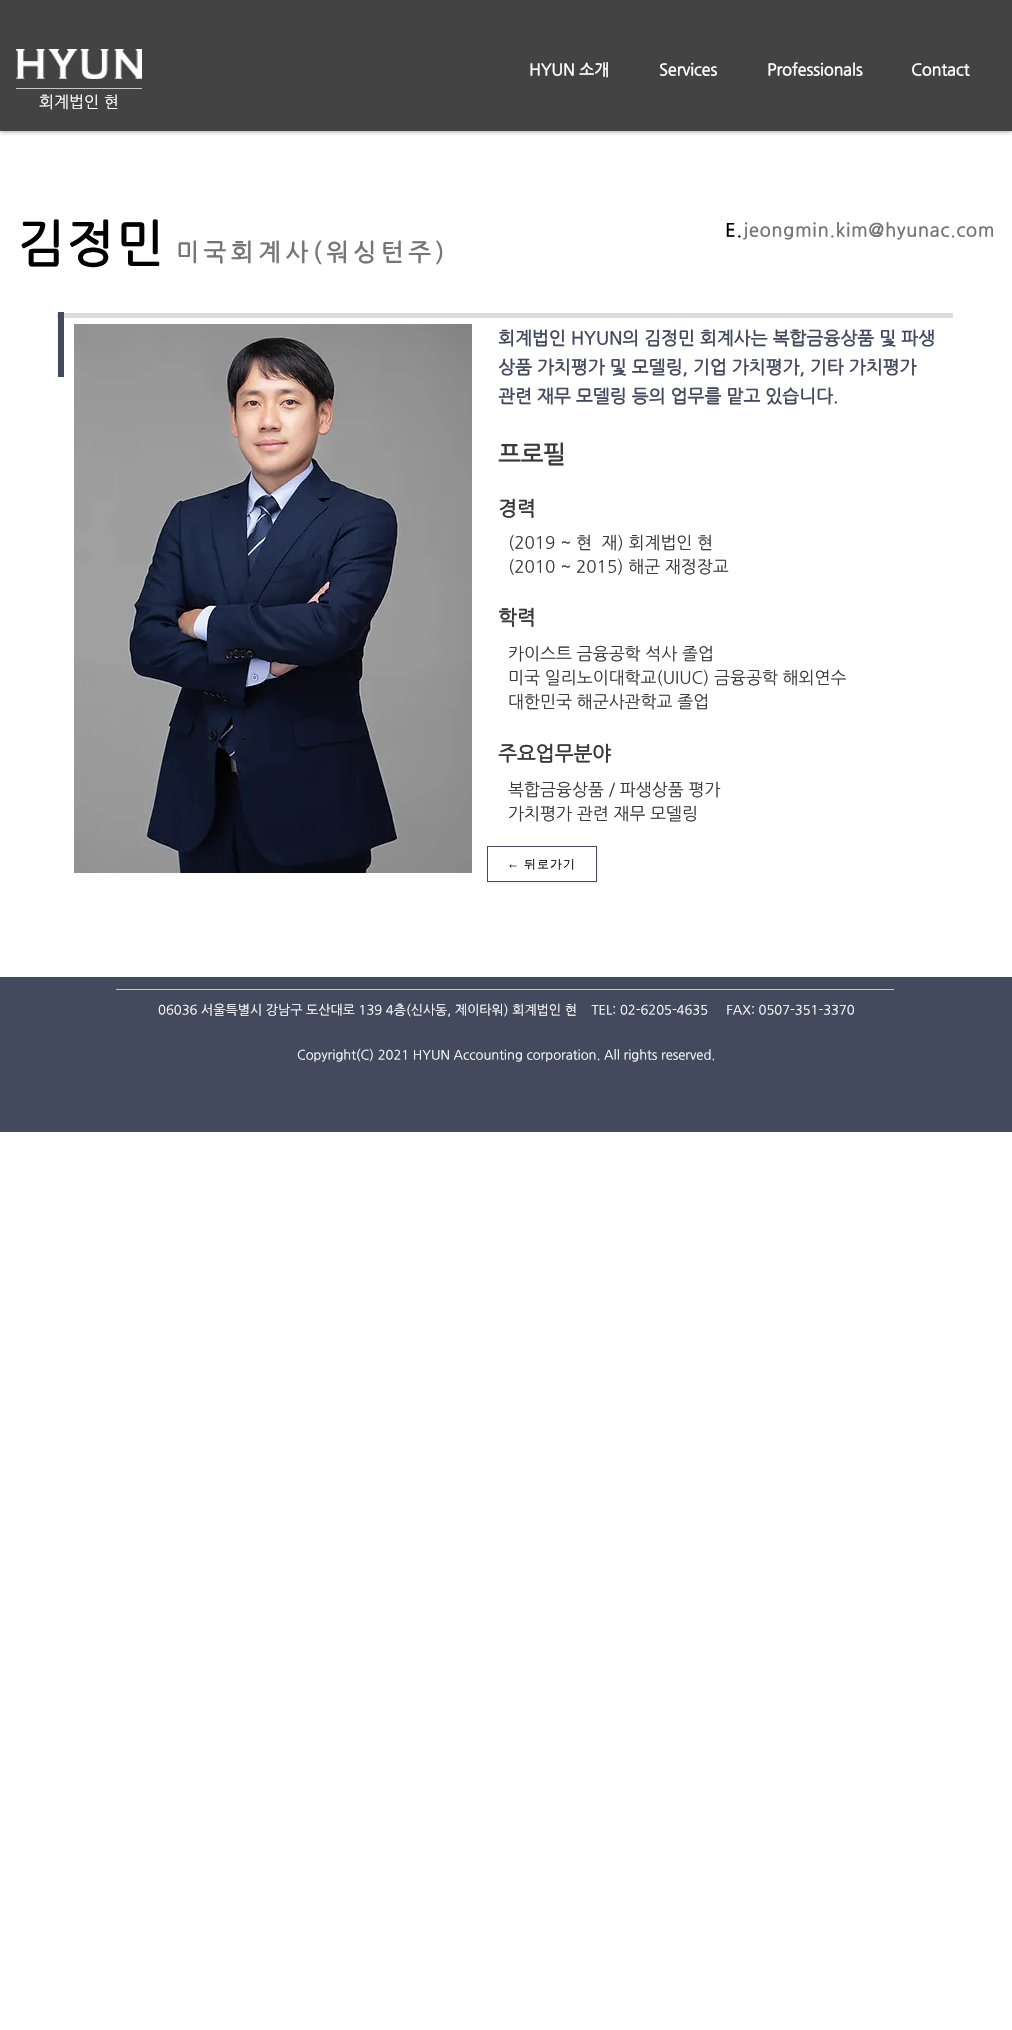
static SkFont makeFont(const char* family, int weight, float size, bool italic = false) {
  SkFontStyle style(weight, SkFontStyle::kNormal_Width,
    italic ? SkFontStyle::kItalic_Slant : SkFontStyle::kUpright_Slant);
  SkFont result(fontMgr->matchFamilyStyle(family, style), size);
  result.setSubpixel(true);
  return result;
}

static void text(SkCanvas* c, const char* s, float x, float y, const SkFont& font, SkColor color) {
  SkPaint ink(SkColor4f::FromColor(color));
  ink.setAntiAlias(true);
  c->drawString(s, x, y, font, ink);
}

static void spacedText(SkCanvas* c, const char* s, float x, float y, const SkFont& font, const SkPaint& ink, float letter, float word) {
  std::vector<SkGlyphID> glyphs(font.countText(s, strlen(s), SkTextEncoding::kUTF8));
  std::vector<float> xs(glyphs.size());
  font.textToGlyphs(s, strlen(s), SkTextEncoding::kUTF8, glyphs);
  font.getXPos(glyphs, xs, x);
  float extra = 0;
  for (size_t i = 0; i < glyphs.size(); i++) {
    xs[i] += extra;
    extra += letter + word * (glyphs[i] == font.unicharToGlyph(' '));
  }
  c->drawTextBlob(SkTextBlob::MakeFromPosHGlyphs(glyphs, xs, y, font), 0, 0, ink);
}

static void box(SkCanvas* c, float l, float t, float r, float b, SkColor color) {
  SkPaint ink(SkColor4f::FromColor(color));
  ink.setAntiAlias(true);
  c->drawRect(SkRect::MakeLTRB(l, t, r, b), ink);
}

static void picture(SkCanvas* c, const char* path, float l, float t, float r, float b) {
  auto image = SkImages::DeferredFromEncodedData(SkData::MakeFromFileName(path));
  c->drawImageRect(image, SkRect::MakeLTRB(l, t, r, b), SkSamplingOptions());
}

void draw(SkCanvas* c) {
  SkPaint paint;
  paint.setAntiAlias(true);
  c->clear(0xffffffff);
  paint.setColor(0x80000000);
  paint.setMaskFilter(SkMaskFilter::MakeBlur(kNormal_SkBlurStyle, 2.5f));
  c->drawRect(SkRect::MakeLTRB(0, 0, 1012, 131), paint);
  paint.setMaskFilter(nullptr);
  box(c, 0, 0, 1012, 131, 0xff444343);
  SkFont face1 = makeFont("NanumGothic", 700, 16);
  text(c, "HYUN 소개", 529, 75, face1, 0xffffffff);
  text(c, "Services", 659, 75, face1, 0xffffffff);
  text(c, "Professionals", 767, 75, face1, 0xffffffff);
  text(c, "Contact", 911, 75, face1, 0xffffffff);
  picture(c, "img_01.png", 16, 49, 142, 79);
  box(c, 16, 88, 142, 89, 0xffc6c6c6);
  SkFont face2 = makeFont("NanumGothic", 400, 16);
  text(c, "회계법인 현", 39, 107, face2, 0xffffffff);
  SkFont face3 = makeFont("NanumGothic", 700, 50);
  paint.setColor(0xff000000);
  spacedText(c, "김정민", 17, 260, face3, paint, 2.5f, 0);
  SkFont face4 = makeFont("NanumGothic", 700, 18);
  spacedText(c, "E.", 725, 236, face4, paint, 0.9f, 0);
  paint.setColor(0xff757575);
  spacedText(c, "jeongmin.kim@hyunac.com", 743, 236, face4, paint, 0.9f, 0);
  SkFont face5 = makeFont("NanumGothic", 700, 24);
  spacedText(c, "미국회계사(워싱턴주)", 176, 260, face5, paint, 4.75f, 0);
  box(c, 57, 313, 953, 318, 0xffdddddd);
  box(c, 58, 312, 64, 377, 0xff444a5e);
  picture(c, "img_02.png", 74, 324, 472, 873);
  text(c, "회계법인 HYUN의 김정민 회계사는 복합금융상품 및 파생", 498, 344, face4, 0xff444a5e);
  text(c, "상품 가치평가 및 모델링, 기업 가치평가, 기타 가치평가", 498, 373, face4, 0xff444a5e);
  text(c, "관련 재무 모델링 등의 업무를 맡고 있습니다.", 498, 402, face4, 0xff444a5e);
  text(c, "프로필", 498, 462, face5, 0xff3b3a3a);
  SkFont face6 = makeFont("NanumGothic", 700, 20);
  text(c, "경력", 498, 515, face6, 0xff3b3a3a);
  SkFont face7 = makeFont("NanumGothic", 400, 17);
  text(c, "(2019 ~ 현  재) 회계법인 현", 508, 548, face7, 0xff3b3a3a);
  text(c, "(2010 ~ 2015) 해군 재정장교", 508, 572, face7, 0xff3b3a3a);
  text(c, "학력", 498, 624, face6, 0xff3b3a3a);
  text(c, "카이스트 금융공학 석사 졸업", 508, 659, face7, 0xff3b3a3a);
  text(c, "미국 일리노이대학교(UIUC) 금융공학 해외연수", 508, 683, face7, 0xff3b3a3a);
  text(c, "대한민국 해군사관학교 졸업", 508, 707, face7, 0xff3b3a3a);
  text(c, "주요업무분야", 498, 760, face6, 0xff3b3a3a);
  text(c, "복합금융상품 / 파생상품 평가", 508, 795, face7, 0xff3b3a3a);
  text(c, "가치평가 관련 재무 모델링", 508, 819, face7, 0xff3b3a3a);
  paint.setColor(0xfff7f7f7);
  c->drawPath(SkPathBuilder().moveTo(599, 846).lineTo(597, 846).lineTo(597, 882).lineTo(487, 882).lineTo(487, 884).lineTo(599, 884).close().detach(), paint);
  paint.setStyle(SkPaint::kStroke_Style);
  paint.setStrokeWidth(1);
  paint.setColor(0xff444a5e);
  c->drawRect(SkRect::MakeLTRB(487.5f, 846.5f, 596.5f, 881.5f), paint);
  SkFont face8 = makeFont("Liberation Sans", 400, 12);
  paint.setStyle(SkPaint::kFill_Style);
  paint.setColor(0xff000000);
  spacedText(c, "←", 507, 868, face8, paint, 1, 0);
  SkFont face9 = makeFont("WenQuanYi Zen Hei", 500, 12);
  spacedText(c, "뒤로가기", 524, 868, face9, paint, 1, 0);
  box(c, 0, 977, 1012, 1132, 0xff444a5e);
  box(c, 116, 989, 894, 990, 0xffc6c6c6);
  SkFont face10 = makeFont("NanumGothic", 400, 13);
  text(c, "06036 서울특별시 강남구 도산대로 139 4층(신사동, 제이타워) 회계법인 현    TEL: 02-6205-4635     FAX: 0507-351-3370", 158, 1014, face10, 0xffffffff);
  text(c, "Copyright(C) 2021 HYUN Accounting corporation. All rights reserved.", 297, 1059, face10, 0xffffffff);
}
